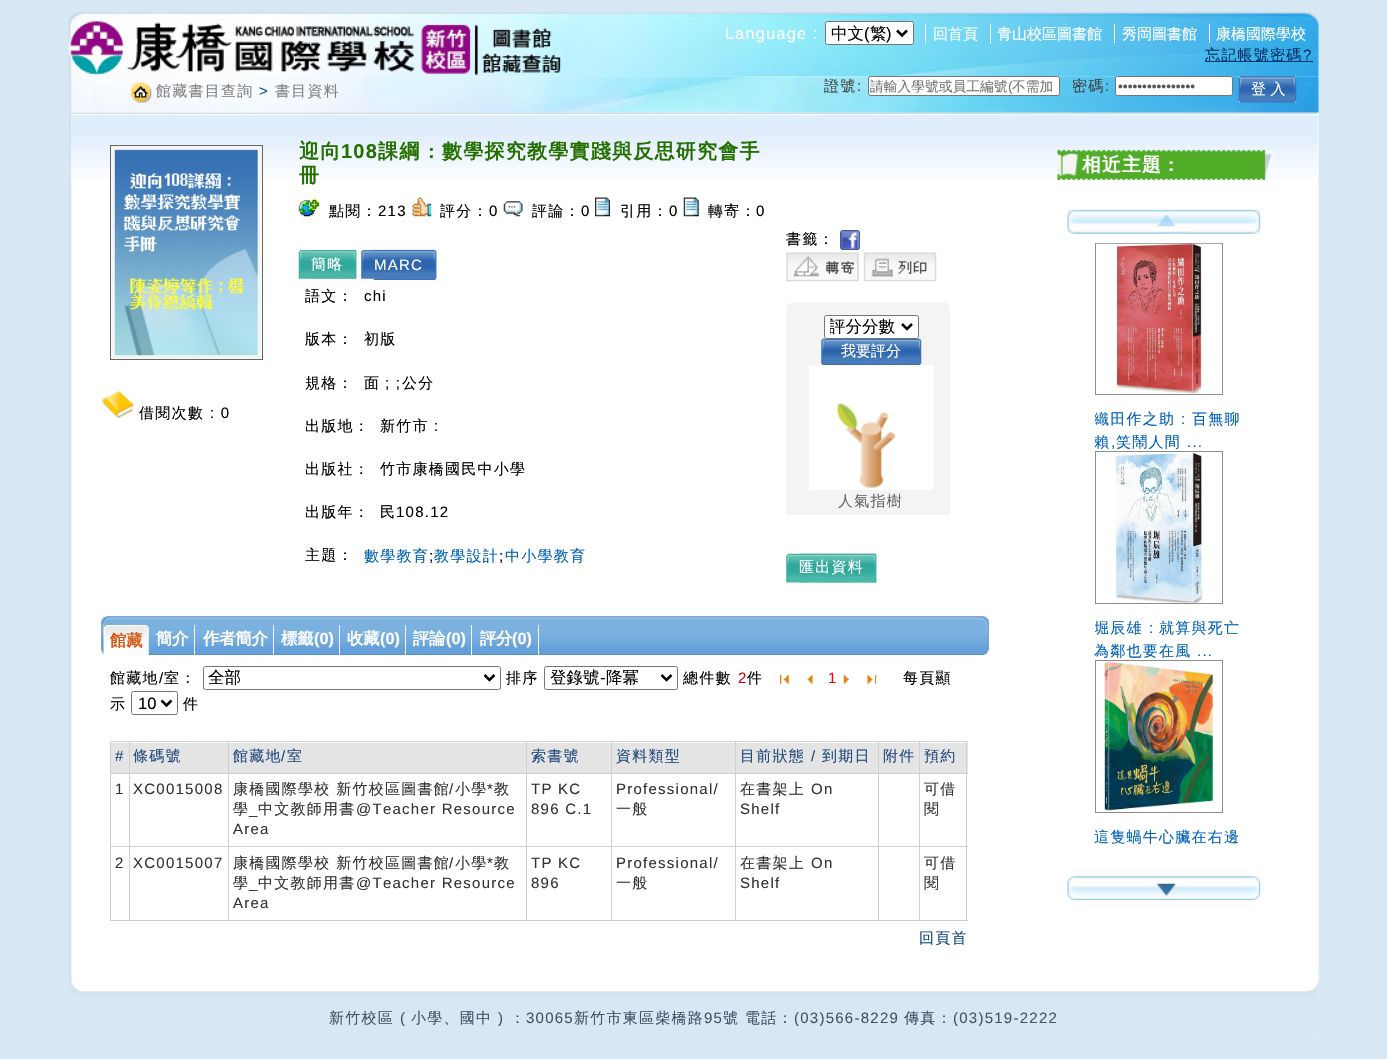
static SkFont makeFont(const char* family, int weight, float size, bool italic = false) {
  SkFontStyle style(weight, SkFontStyle::kNormal_Width,
    italic ? SkFontStyle::kItalic_Slant : SkFontStyle::kUpright_Slant);
  SkFont result(fontMgr->matchFamilyStyle(family, style), size);
  result.setSubpixel(true);
  return result;
}

static void text(SkCanvas* c, const char* s, float x, float y, const SkFont& font, SkColor color) {
  SkPaint ink(SkColor4f::FromColor(color));
  ink.setAntiAlias(true);
  c->drawString(s, x, y, font, ink);
}

static void spacedText(SkCanvas* c, const char* s, float x, float y, const SkFont& font, const SkPaint& ink, float letter, float word) {
  std::vector<SkGlyphID> glyphs(font.countText(s, strlen(s), SkTextEncoding::kUTF8));
  std::vector<float> xs(glyphs.size());
  font.textToGlyphs(s, strlen(s), SkTextEncoding::kUTF8, glyphs);
  font.getXPos(glyphs, xs, x);
  float extra = 0;
  for (size_t i = 0; i < glyphs.size(); i++) {
    xs[i] += extra;
    extra += letter + word * (glyphs[i] == font.unicharToGlyph(' '));
  }
  c->drawTextBlob(SkTextBlob::MakeFromPosHGlyphs(glyphs, xs, y, font), 0, 0, ink);
}

static void box(SkCanvas* c, float l, float t, float r, float b, SkColor color) {
  SkPaint ink(SkColor4f::FromColor(color));
  ink.setAntiAlias(true);
  c->drawRect(SkRect::MakeLTRB(l, t, r, b), ink);
}

static void picture(SkCanvas* c, const char* path, float l, float t, float r, float b) {
  auto image = SkImages::DeferredFromEncodedData(SkData::MakeFromFileName(path));
  c->drawImageRect(image, SkRect::MakeLTRB(l, t, r, b), SkSamplingOptions());
}

void draw(SkCanvas* c) {
  SkPaint paint;
  paint.setAntiAlias(true);
  c->clear(0xffd7e8f4);
  picture(c, "img_01.png", 69, 0, 1319, 1035);
  picture(c, "img_02.png", 68, 0, 1319, 77);
  picture(c, "img_03.png", 68, 21, 561, 76);
  SkFont face1 = makeFont("Liberation Sans", 400, 16.25f);
  paint.setColor(0xffffffff);
  spacedText(c, "Language :", 725, 39, face1, paint, 1.25f, 0);
  c->drawRoundRect(SkRect::MakeLTRB(825.5f, 21.5f, 913.5f, 44.5f), 2, 2, paint);
  paint.setStyle(SkPaint::kStroke_Style);
  paint.setStrokeWidth(1);
  paint.setColor(0xff767676);
  c->drawRoundRect(SkRect::MakeLTRB(825.5f, 21.5f, 913.5f, 44.5f), 2, 2, paint);
  paint.setStrokeWidth(2.5f);
  paint.setColor(0xff000000);
  c->drawPath(SkPathBuilder().moveTo(897, 30.5f).lineTo(902, 35.5f).lineTo(907, 30.5f).detach(), paint);
  SkFont face2 = makeFont("WenQuanYi Zen Hei", 500, 16.5f);
  text(c, "中文", 831, 39, face2, 0xff000000);
  SkFont face3 = makeFont("Liberation Sans", 400, 16.5f);
  text(c, "(", 864, 39, face3, 0xff000000);
  text(c, "繁", 870, 39, face2, 0xff000000);
  text(c, ")", 886, 39, face3, 0xff000000);
  SkFont face4 = makeFont("WenQuanYi Zen Hei", 500, 15);
  text(c, "回首頁", 933, 39, face4, 0xffffffff);
  box(c, 925, 24, 926, 43, 0xffffffff);
  text(c, "青山校區圖書館", 997, 39, face4, 0xffffffff);
  box(c, 990, 24, 991, 43, 0xffffffff);
  text(c, "秀岡圖書館", 1122, 39, face4, 0xffffffff);
  box(c, 1114, 24, 1115, 43, 0xffffffff);
  text(c, "康橋國際學校", 1216, 39, face4, 0xffffffff);
  box(c, 1209, 24, 1210, 43, 0xffffffff);
  box(c, 1205, 61, 1313, 62, 0xff003366);
  paint.setStyle(SkPaint::kFill_Style);
  paint.setColor(0xff003366);
  spacedText(c, "忘記帳號密碼", 1205, 60, face4, paint, 1.25f, 0);
  SkFont face5 = makeFont("Liberation Sans", 400, 15);
  spacedText(c, "?", 1303, 60, face5, paint, 1.25f, 0);
  picture(c, "img_07.png", 71, 112, 1318, 181);
  picture(c, "img_04.png", 71, 76, 700, 113);
  paint.setColor(0xff818181);
  spacedText(c, "館藏書目查詢", 156, 96, face4, paint, 1.25f, 0);
  paint.setColor(0xff0f4f8b);
  spacedText(c, ">", 259, 96, face5, paint, 1.25f, 0);
  paint.setColor(0xff818181);
  spacedText(c, "書目資料", 275, 96, face4, paint, 1.25f, 0);
  picture(c, "img_05.png", 700, 76, 1319, 113);
  paint.setColor(0xff444444);
  spacedText(c, "證號", 824, 91, face4, paint, 1.25f, 0);
  spacedText(c, ":", 857, 91, face5, paint, 1.25f, 0);
  paint.setColor(0xffffffff);
  c->drawRoundRect(SkRect::MakeLTRB(868.5f, 76.5f, 1059.5f, 95.5f), 2, 2, paint);
  paint.setStyle(SkPaint::kStroke_Style);
  paint.setStrokeWidth(1);
  paint.setColor(0xff767676);
  c->drawRoundRect(SkRect::MakeLTRB(868.5f, 76.5f, 1059.5f, 95.5f), 2, 2, paint);
  SkFont face6 = makeFont("WenQuanYi Zen Hei", 500, 13.75f);
  text(c, "請輸入學號或員工編號", 870, 91, face6, 0xff757575);
  SkFont face7 = makeFont("Liberation Sans", 400, 13.75f);
  text(c, "(", 1008, 91, face7, 0xff757575);
  text(c, "不需加", 1012, 91, face6, 0xff757575);
  paint.setStyle(SkPaint::kFill_Style);
  paint.setColor(0xff444444);
  spacedText(c, "密碼", 1072, 91, face4, paint, 1.25f, 0);
  spacedText(c, ":", 1105, 91, face5, paint, 1.25f, 0);
  paint.setColor(0xffffffff);
  c->drawRoundRect(SkRect::MakeLTRB(1115.5f, 76.5f, 1232.5f, 95.5f), 2, 2, paint);
  paint.setStyle(SkPaint::kStroke_Style);
  paint.setColor(0xff767676);
  c->drawRoundRect(SkRect::MakeLTRB(1115.5f, 76.5f, 1232.5f, 95.5f), 2, 2, paint);
  text(c, "••••••••••••••••", 1118, 91, face7, 0xff555555);
  picture(c, "img_06.png", 1238, 76, 1297, 103);
  text(c, "登 入", 1251, 94, face4, 0xffffffff);
  paint.setColor(0xff666666);
  c->drawRect(SkRect::MakeLTRB(110.5f, 145.5f, 262.5f, 359.5f), paint);
  picture(c, "img_08.png", 111, 146, 262, 359);
  picture(c, "img_09.png", 102, 391, 134, 418);
  paint.setStyle(SkPaint::kFill_Style);
  paint.setColor(0xff000000);
  spacedText(c, "借閱次數", 139, 418, face4, paint, 1.25f, 0);
  spacedText(c, ": 0", 210, 418, face5, paint, 1.25f, 0);
  SkFont face8 = makeFont("WenQuanYi Zen Hei", 700, 20);
  paint.setColor(0xff237000);
  spacedText(c, "迎向", 299, 158, face8, paint, 1.25f, 0);
  SkFont face9 = makeFont("Liberation Sans", 700, 20);
  spacedText(c, "108", 341, 158, face9, paint, 1.25f, 0);
  spacedText(c, "課綱", 378, 158, face8, paint, 1.25f, 0);
  spacedText(c, ":", 428, 158, face9, paint, 1.25f, 0);
  spacedText(c, "數學探究教學實踐與反思研究會手", 442, 158, face8, paint, 1.25f, 0);
  spacedText(c, "冊", 299, 182, face8, paint, 1.25f, 0);
  picture(c, "img_10.png", 298, 198, 320, 217);
  paint.setColor(0xff000000);
  spacedText(c, "點閱：", 329, 216, face4, paint, 1.25f, 0);
  spacedText(c, "213", 378, 216, face5, paint, 1.25f, 0);
  picture(c, "img_11.png", 412, 197, 432, 217);
  spacedText(c, "評分：", 440, 216, face4, paint, 1.25f, 0);
  spacedText(c, "0", 489, 216, face5, paint, 1.25f, 0);
  picture(c, "img_12.png", 503, 201, 523, 217);
  spacedText(c, "評論：", 532, 216, face4, paint, 1.25f, 0);
  spacedText(c, "0", 581, 216, face5, paint, 1.25f, 0);
  picture(c, "img_13.png", 595, 197, 610, 217);
  spacedText(c, "引用：", 620, 216, face4, paint, 1.25f, 0);
  spacedText(c, "0", 669, 216, face5, paint, 1.25f, 0);
  picture(c, "img_14.png", 683, 197, 699, 217);
  spacedText(c, "轉寄：", 708, 216, face4, paint, 1.25f, 0);
  spacedText(c, "0", 756, 216, face5, paint, 1.25f, 0);
  picture(c, "img_15.png", 298, 249, 357, 279);
  picture(c, "img_16.png", 311, 249, 357, 279);
  paint.setColor(0xffffffff);
  spacedText(c, "簡略", 311, 269, face4, paint, 1.25f, 0);
  picture(c, "img_17.png", 361, 249, 437, 279);
  picture(c, "img_18.png", 373, 249, 437, 280);
  spacedText(c, "MARC", 374, 270, face5, paint, 1.25f, 0);
  paint.setColor(0xff000000);
  spacedText(c, "語文：", 305, 301, face4, paint, 1.25f, 0);
  spacedText(c, "chi", 364, 301, face5, paint, 1.25f, 0);
  spacedText(c, "版本：", 305, 344, face4, paint, 1.25f, 0);
  spacedText(c, "初版", 364, 344, face4, paint, 1.25f, 0);
  spacedText(c, "規格：", 305, 388, face4, paint, 1.25f, 0);
  spacedText(c, "面", 364, 388, face4, paint, 1.25f, 0);
  spacedText(c, "; ;", 385, 388, face5, paint, 1.25f, 0);
  spacedText(c, "公分", 402, 388, face4, paint, 1.25f, 0);
  spacedText(c, "出版地：", 305, 431, face4, paint, 1.25f, 0);
  spacedText(c, "新竹市", 380, 431, face4, paint, 1.25f, 0);
  spacedText(c, ":", 434, 431, face5, paint, 1.25f, 0);
  spacedText(c, "出版社：", 305, 474, face4, paint, 1.25f, 0);
  spacedText(c, "竹市康橋國民中小學", 380, 474, face4, paint, 1.25f, 0);
  spacedText(c, "出版年：", 305, 517, face4, paint, 1.25f, 0);
  spacedText(c, "民", 380, 517, face4, paint, 1.25f, 0);
  spacedText(c, "108.12", 396, 517, face5, paint, 1.25f, 0);
  spacedText(c, "主題：", 305, 560, face4, paint, 1.25f, 0);
  paint.setColor(0xff0061b4);
  spacedText(c, "數學教育", 364, 561, face4, paint, 1.25f, 0);
  paint.setColor(0xff000000);
  spacedText(c, ";", 429, 561, face5, paint, 1.25f, 0);
  paint.setColor(0xff0061b4);
  spacedText(c, "教學設計", 434, 561, face4, paint, 1.25f, 0);
  paint.setColor(0xff000000);
  spacedText(c, ";", 499, 561, face5, paint, 1.25f, 0);
  paint.setColor(0xff0061b4);
  spacedText(c, "中小學教育", 505, 561, face4, paint, 1.25f, 0);
  paint.setColor(0xff000000);
  spacedText(c, "書籤：", 786, 244, face4, paint, 1.25f, 0);
  picture(c, "img_19.png", 840, 230, 860, 250);
  picture(c, "img_20.png", 786, 252, 859, 282);
  picture(c, "img_21.png", 863, 252, 937, 282);
  picture(c, "img_22.png", 786, 302, 950, 515);
  paint.setColor(0xffffffff);
  c->drawRoundRect(SkRect::MakeLTRB(824.5f, 315.5f, 918.5f, 338.5f), 2, 2, paint);
  paint.setStyle(SkPaint::kStroke_Style);
  paint.setColor(0xff767676);
  c->drawRoundRect(SkRect::MakeLTRB(824.5f, 315.5f, 918.5f, 338.5f), 2, 2, paint);
  paint.setStrokeWidth(2.5f);
  paint.setColor(0xff000000);
  c->drawPath(SkPathBuilder().moveTo(902, 324).lineTo(907, 329).lineTo(912, 324).detach(), paint);
  c->save();
  c->clipRect(SkRect::MakeLTRB(830, 316, 898, 338));
  text(c, "評分分數", 829, 332, face2, 0xff000000);
  c->restore();
  picture(c, "img_23.png", 821, 338, 922, 365);
  text(c, "我要評分", 841, 356, face4, 0xffffffff);
  picture(c, "img_24.png", 809, 365, 934, 490);
  paint.setStyle(SkPaint::kFill_Style);
  paint.setColor(0xff666666);
  spacedText(c, "人氣指樹", 838, 506, face4, paint, 1.25f, 0);
  picture(c, "img_25.png", 786, 553, 877, 583);
  picture(c, "img_26.png", 798, 553, 877, 583);
  paint.setColor(0xffffffff);
  spacedText(c, "匯出資料", 799, 572, face4, paint, 1.25f, 0);
  picture(c, "img_27.png", 101, 616, 989, 655);
  picture(c, "img_28.png", 103, 625, 149, 655);
  picture(c, "img_29.png", 103, 625, 107, 654);
  SkFont face10 = makeFont("WenQuanYi Zen Hei", 700, 16.25f);
  text(c, "館藏", 110, 646, face10, 0xffd55915);
  box(c, 194, 625, 195, 655, 0xffffffff);
  text(c, "簡介", 156, 644, face10, 0xffffffff);
  box(c, 273, 625, 274, 655, 0xffffffff);
  text(c, "作者簡介", 203, 644, face10, 0xffffffff);
  box(c, 339, 625, 340, 655, 0xffffffff);
  text(c, "標籤", 281, 644, face10, 0xffffffff);
  SkFont face11 = makeFont("Liberation Sans", 700, 16.25f);
  text(c, "(0)", 314, 644, face11, 0xffffffff);
  box(c, 405, 625, 406, 655, 0xffffffff);
  text(c, "收藏", 347, 644, face10, 0xffffffff);
  text(c, "(0)", 380, 644, face11, 0xffffffff);
  box(c, 471, 625, 472, 655, 0xffffffff);
  text(c, "評論", 413, 644, face10, 0xffffffff);
  text(c, "(0)", 446, 644, face11, 0xffffffff);
  box(c, 538, 625, 539, 655, 0xffffffff);
  text(c, "評分", 480, 644, face10, 0xffffffff);
  text(c, "(0)", 512, 644, face11, 0xffffffff);
  paint.setColor(0xff000000);
  spacedText(c, "館藏地", 110, 683, face4, paint, 1.25f, 0);
  spacedText(c, "/", 159, 683, face5, paint, 1.25f, 0);
  spacedText(c, "室：", 164, 683, face4, paint, 1.25f, 0);
  paint.setStyle(SkPaint::kStroke_Style);
  paint.setStrokeWidth(1);
  paint.setColor(0xff767676);
  c->drawRoundRect(SkRect::MakeLTRB(203.5f, 666.5f, 500.5f, 689.5f), 2, 2, paint);
  paint.setStrokeWidth(2.5f);
  paint.setColor(0xff000000);
  c->drawPath(SkPathBuilder().moveTo(484.5f, 675).lineTo(489.5f, 680).lineTo(494.5f, 675).detach(), paint);
  text(c, "全部", 208, 683, face2, 0xff000000);
  paint.setStyle(SkPaint::kFill_Style);
  spacedText(c, "排序", 506, 683, face4, paint, 1.25f, 0);
  paint.setStyle(SkPaint::kStroke_Style);
  paint.setStrokeWidth(1);
  paint.setColor(0xff767676);
  c->drawRoundRect(SkRect::MakeLTRB(544.5f, 666.5f, 677.5f, 689.5f), 2, 2, paint);
  paint.setStrokeWidth(2.5f);
  paint.setColor(0xff000000);
  c->drawPath(SkPathBuilder().moveTo(661.5f, 675).lineTo(666.5f, 680).lineTo(671.5f, 675).detach(), paint);
  text(c, "登錄號", 550, 683, face2, 0xff000000);
  text(c, "-", 600, 683, face3, 0xff000000);
  text(c, "降冪", 606, 683, face2, 0xff000000);
  paint.setStyle(SkPaint::kFill_Style);
  spacedText(c, "總件數", 683, 683, face4, paint, 1.25f, 0);
  paint.setColor(0xffcc0000);
  spacedText(c, "2", 738, 683, face5, paint, 1.25f, 0);
  paint.setColor(0xff000000);
  spacedText(c, "件", 747, 683, face4, paint, 1.25f, 0);
  picture(c, "img_30.png", 780, 675, 789, 684);
  picture(c, "img_31.png", 807, 675, 813, 684);
  paint.setColor(0xffff0000);
  spacedText(c, "1", 828, 683, face5, paint, 1.25f, 0);
  picture(c, "img_32.png", 843, 675, 849, 684);
  picture(c, "img_33.png", 867, 675, 877, 684);
  paint.setColor(0xff000000);
  spacedText(c, "每頁顯", 903, 683, face4, paint, 1.25f, 0);
  spacedText(c, "示", 110, 709, face4, paint, 1.25f, 0);
  paint.setStyle(SkPaint::kStroke_Style);
  paint.setStrokeWidth(1);
  paint.setColor(0xff767676);
  c->drawRoundRect(SkRect::MakeLTRB(131.5f, 691.5f, 177.5f, 714.5f), 2, 2, paint);
  paint.setStrokeWidth(2.5f);
  paint.setColor(0xff000000);
  c->drawPath(SkPathBuilder().moveTo(161.5f, 700.5f).lineTo(166.5f, 705.5f).lineTo(171.5f, 700.5f).detach(), paint);
  text(c, "10", 138, 709, face3, 0xff000000);
  paint.setStyle(SkPaint::kFill_Style);
  spacedText(c, "件", 183, 709, face4, paint, 1.25f, 0);
  box(c, 110, 741, 968, 742, 0xffcfcfcf);
  box(c, 920, 743, 968, 773, 0xffe4e4e4);
  box(c, 966, 741, 967, 921, 0xffcfcfcf);
  box(c, 110, 741, 111, 921, 0xffcfcfcf);
  box(c, 111, 743, 129, 773, 0xffe4e4e4);
  box(c, 919, 920, 968, 921, 0xffcfcfcf);
  box(c, 919, 846, 920, 921, 0xffcfcfcf);
  box(c, 919, 846, 968, 847, 0xffcfcfcf);
  box(c, 919, 773, 920, 848, 0xffcfcfcf);
  box(c, 919, 773, 968, 774, 0xffcfcfcf);
  box(c, 919, 741, 920, 774, 0xffcfcfcf);
  box(c, 878, 920, 920, 921, 0xffcfcfcf);
  box(c, 878, 846, 879, 921, 0xffcfcfcf);
  box(c, 878, 846, 920, 847, 0xffcfcfcf);
  box(c, 878, 773, 879, 848, 0xffcfcfcf);
  box(c, 878, 773, 920, 774, 0xffcfcfcf);
  box(c, 878, 741, 879, 774, 0xffcfcfcf);
  box(c, 735, 920, 879, 921, 0xffcfcfcf);
  box(c, 735, 846, 736, 921, 0xffcfcfcf);
  box(c, 735, 846, 879, 847, 0xffcfcfcf);
  box(c, 735, 773, 736, 848, 0xffcfcfcf);
  box(c, 735, 773, 879, 774, 0xffcfcfcf);
  box(c, 735, 741, 736, 774, 0xffcfcfcf);
  box(c, 611, 920, 736, 921, 0xffcfcfcf);
  box(c, 611, 846, 612, 921, 0xffcfcfcf);
  box(c, 611, 846, 736, 847, 0xffcfcfcf);
  box(c, 611, 773, 612, 848, 0xffcfcfcf);
  box(c, 611, 773, 736, 774, 0xffcfcfcf);
  box(c, 611, 741, 612, 774, 0xffcfcfcf);
  box(c, 526, 920, 613, 921, 0xffcfcfcf);
  box(c, 526, 846, 527, 921, 0xffcfcfcf);
  box(c, 526, 846, 613, 847, 0xffcfcfcf);
  box(c, 526, 773, 527, 848, 0xffcfcfcf);
  box(c, 526, 773, 613, 774, 0xffcfcfcf);
  box(c, 526, 741, 527, 774, 0xffcfcfcf);
  box(c, 228, 920, 528, 921, 0xffcfcfcf);
  box(c, 228, 846, 229, 921, 0xffcfcfcf);
  box(c, 228, 846, 528, 847, 0xffcfcfcf);
  box(c, 228, 773, 229, 848, 0xffcfcfcf);
  box(c, 228, 773, 528, 774, 0xffcfcfcf);
  box(c, 228, 741, 229, 774, 0xffcfcfcf);
  box(c, 129, 920, 229, 921, 0xffcfcfcf);
  box(c, 129, 846, 130, 921, 0xffcfcfcf);
  box(c, 129, 846, 229, 847, 0xffcfcfcf);
  box(c, 129, 773, 130, 848, 0xffcfcfcf);
  box(c, 129, 773, 229, 774, 0xffcfcfcf);
  box(c, 129, 741, 130, 774, 0xffcfcfcf);
  box(c, 110, 773, 130, 774, 0xffcfcfcf);
  paint.setColor(0xff20487b);
  spacedText(c, "#", 115, 761, face5, paint, 1.25f, 0);
  box(c, 130, 743, 228, 773, 0xffe4e4e4);
  spacedText(c, "條碼號", 133, 761, face4, paint, 1.25f, 0);
  box(c, 229, 743, 526, 773, 0xffe4e4e4);
  spacedText(c, "館藏地", 233, 761, face4, paint, 1.25f, 0);
  spacedText(c, "/", 281, 761, face5, paint, 1.25f, 0);
  spacedText(c, "室", 287, 761, face4, paint, 1.25f, 0);
  box(c, 527, 743, 611, 773, 0xffe4e4e4);
  spacedText(c, "索書號", 531, 761, face4, paint, 1.25f, 0);
  box(c, 612, 743, 735, 773, 0xffe4e4e4);
  spacedText(c, "資料類型", 616, 761, face4, paint, 1.25f, 0);
  box(c, 736, 743, 878, 773, 0xffe4e4e4);
  spacedText(c, "目前狀態", 740, 761, face4, paint, 1.25f, 0);
  spacedText(c, "/", 811, 761, face5, paint, 1.25f, 0);
  spacedText(c, "到期日", 822, 761, face4, paint, 1.25f, 0);
  box(c, 879, 743, 919, 773, 0xffe4e4e4);
  spacedText(c, "附件", 883, 761, face4, paint, 1.25f, 0);
  spacedText(c, "預約", 924, 761, face4, paint, 1.25f, 0);
  box(c, 110, 846, 130, 847, 0xffcfcfcf);
  paint.setColor(0xff333333);
  spacedText(c, "1", 115, 794, face5, paint, 1.25f, 0);
  spacedText(c, "XC0015008", 133, 794, face5, paint, 1.25f, 0);
  spacedText(c, "康橋國際學校 新竹校區圖書館", 233, 794, face4, paint, 1.25f, 0);
  spacedText(c, "/", 449, 794, face5, paint, 1.25f, 0);
  spacedText(c, "小學", 455, 794, face4, paint, 1.25f, 0);
  spacedText(c, "*", 487, 794, face5, paint, 1.25f, 0);
  spacedText(c, "教", 494, 794, face4, paint, 1.25f, 0);
  spacedText(c, "學", 233, 814, face4, paint, 1.25f, 0);
  spacedText(c, "_", 249, 814, face5, paint, 1.25f, 0);
  spacedText(c, "中文教師用書", 258, 814, face4, paint, 1.25f, 0);
  spacedText(c, "@Teacher Resource", 356, 814, face5, paint, 1.25f, 0);
  spacedText(c, "Area", 233, 834, face5, paint, 1.25f, 0);
  spacedText(c, "TP KC", 531, 794, face5, paint, 1.25f, 0);
  spacedText(c, "896 C.1", 531, 814, face5, paint, 1.25f, 0);
  spacedText(c, "Professional/", 616, 794, face5, paint, 1.25f, 0);
  spacedText(c, "一般", 616, 814, face4, paint, 1.25f, 0);
  spacedText(c, "在書架上", 740, 794, face4, paint, 1.25f, 0);
  spacedText(c, "On", 811, 794, face5, paint, 1.25f, 0);
  spacedText(c, "Shelf", 740, 814, face5, paint, 1.25f, 0);
  spacedText(c, "可借", 924, 794, face4, paint, 1.25f, 0);
  spacedText(c, "閱", 924, 814, face4, paint, 1.25f, 0);
  box(c, 110, 920, 130, 921, 0xffcfcfcf);
  spacedText(c, "2", 115, 868, face5, paint, 1.25f, 0);
  spacedText(c, "XC0015007", 133, 868, face5, paint, 1.25f, 0);
  spacedText(c, "康橋國際學校 新竹校區圖書館", 233, 868, face4, paint, 1.25f, 0);
  spacedText(c, "/", 449, 868, face5, paint, 1.25f, 0);
  spacedText(c, "小學", 455, 868, face4, paint, 1.25f, 0);
  spacedText(c, "*", 487, 868, face5, paint, 1.25f, 0);
  spacedText(c, "教", 494, 868, face4, paint, 1.25f, 0);
  spacedText(c, "學", 233, 888, face4, paint, 1.25f, 0);
  spacedText(c, "_", 249, 888, face5, paint, 1.25f, 0);
  spacedText(c, "中文教師用書", 258, 888, face4, paint, 1.25f, 0);
  spacedText(c, "@Teacher Resource", 356, 888, face5, paint, 1.25f, 0);
  spacedText(c, "Area", 233, 908, face5, paint, 1.25f, 0);
  spacedText(c, "TP KC", 531, 868, face5, paint, 1.25f, 0);
  spacedText(c, "896", 531, 888, face5, paint, 1.25f, 0);
  spacedText(c, "Professional/", 616, 868, face5, paint, 1.25f, 0);
  spacedText(c, "一般", 616, 888, face4, paint, 1.25f, 0);
  spacedText(c, "在書架上", 740, 868, face4, paint, 1.25f, 0);
  spacedText(c, "On", 811, 868, face5, paint, 1.25f, 0);
  spacedText(c, "Shelf", 740, 888, face5, paint, 1.25f, 0);
  spacedText(c, "可借", 924, 868, face4, paint, 1.25f, 0);
  spacedText(c, "閱", 924, 888, face4, paint, 1.25f, 0);
  paint.setColor(0xff14497f);
  spacedText(c, "回頁首", 919, 943, face4, paint, 1.25f, 0);
  picture(c, "img_34.png", 1057, 150, 1273, 180);
  SkFont face12 = makeFont("WenQuanYi Zen Hei", 700, 18.75f);
  paint.setColor(0xffffffff);
  spacedText(c, "相近主題", 1082, 171, face12, paint, 1.25f, 0);
  SkFont face13 = makeFont("Liberation Sans", 700, 18.75f);
  spacedText(c, ":", 1168, 171, face13, paint, 1.25f, 0);
  picture(c, "img_35.png", 1067, 209, 1261, 234);
  paint.setStyle(SkPaint::kStroke_Style);
  paint.setStrokeWidth(1);
  paint.setColor(0xff8d8d8d);
  c->drawRect(SkRect::MakeLTRB(1095.5f, 243.5f, 1222.5f, 394.5f), paint);
  picture(c, "img_36.png", 1096, 243, 1222, 394);
  c->save();
  c->clipRect(SkRect::MakeLTRB(1095, 243, 1245, 868));
  paint.setStyle(SkPaint::kFill_Style);
  paint.setColor(0xff0061b4);
  spacedText(c, "織田作之助", 1094, 424, face4, paint, 1.25f, 0);
  c->restore();
  spacedText(c, ":", 1181, 424, face5, paint, 1.25f, 0);
  spacedText(c, "百無聊", 1192, 424, face4, paint, 1.25f, 0);
  spacedText(c, "賴", 1094, 447, face4, paint, 1.25f, 0);
  spacedText(c, ",", 1111, 447, face5, paint, 1.25f, 0);
  spacedText(c, "笑鬧人間", 1116, 447, face4, paint, 1.25f, 0);
  spacedText(c, "...", 1187, 447, face5, paint, 1.25f, 0);
  paint.setStyle(SkPaint::kStroke_Style);
  paint.setColor(0xff8d8d8d);
  c->drawRect(SkRect::MakeLTRB(1095.5f, 451.5f, 1222.5f, 603.5f), paint);
  picture(c, "img_37.png", 1115, 452, 1203, 603);
  c->save();
  c->clipRect(SkRect::MakeLTRB(1095, 243, 1245, 868));
  paint.setStyle(SkPaint::kFill_Style);
  paint.setColor(0xff0061b4);
  spacedText(c, "堀辰雄", 1094, 633, face4, paint, 1.25f, 0);
  c->restore();
  spacedText(c, ":", 1149, 633, face5, paint, 1.25f, 0);
  spacedText(c, "就算與死亡", 1159, 633, face4, paint, 1.25f, 0);
  spacedText(c, "為鄰也要在風", 1094, 656, face4, paint, 1.25f, 0);
  spacedText(c, "...", 1197, 656, face5, paint, 1.25f, 0);
  paint.setStyle(SkPaint::kStroke_Style);
  paint.setColor(0xff8d8d8d);
  c->drawRect(SkRect::MakeLTRB(1095.5f, 660.5f, 1222.5f, 812.5f), paint);
  picture(c, "img_38.png", 1104, 661, 1214, 811);
  paint.setStyle(SkPaint::kFill_Style);
  paint.setColor(0xff0061b4);
  spacedText(c, "這隻蝸牛心臟在右邊", 1094, 842, face4, paint, 1.25f, 0);
  picture(c, "img_39.png", 1067, 876, 1261, 901);
  picture(c, "img_40.png", 69, 975, 1319, 1035);
  paint.setColor(0xff425267);
  spacedText(c, "新竹校區", 329, 1023, face4, paint, 1.25f, 0);
  spacedText(c, "(", 400, 1023, face5, paint, 1.25f, 0);
  spacedText(c, "小學、國中", 411, 1023, face4, paint, 1.25f, 0);
  spacedText(c, ")", 498, 1023, face5, paint, 1.25f, 0);
  spacedText(c, "：", 510, 1023, face4, paint, 1.25f, 0);
  spacedText(c, "30065", 526, 1023, face5, paint, 1.25f, 0);
  spacedText(c, "新竹市東區柴橋路", 574, 1023, face4, paint, 1.25f, 0);
  spacedText(c, "95", 704, 1023, face5, paint, 1.25f, 0);
  spacedText(c, "號 電話：", 723, 1023, face4, paint, 1.25f, 0);
  spacedText(c, "(03)566-8229", 794, 1023, face5, paint, 1.25f, 0);
  spacedText(c, "傳真：", 904, 1023, face4, paint, 1.25f, 0);
  spacedText(c, "(03)519-2222", 953, 1023, face5, paint, 1.25f, 0);
}
